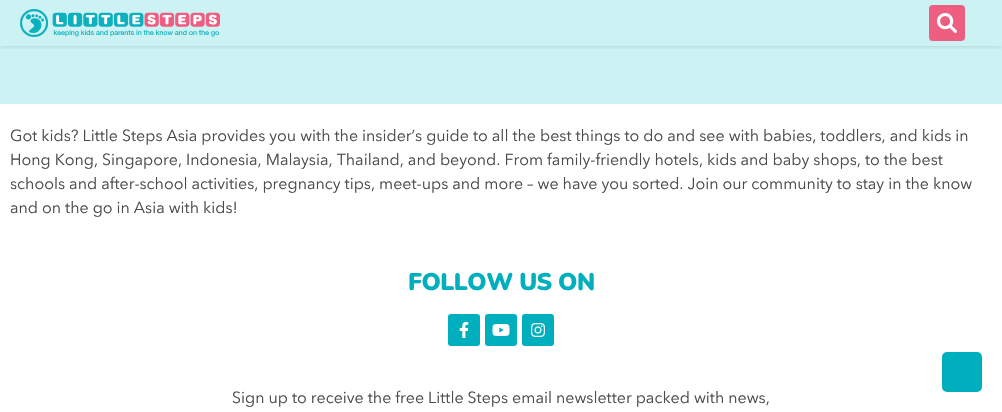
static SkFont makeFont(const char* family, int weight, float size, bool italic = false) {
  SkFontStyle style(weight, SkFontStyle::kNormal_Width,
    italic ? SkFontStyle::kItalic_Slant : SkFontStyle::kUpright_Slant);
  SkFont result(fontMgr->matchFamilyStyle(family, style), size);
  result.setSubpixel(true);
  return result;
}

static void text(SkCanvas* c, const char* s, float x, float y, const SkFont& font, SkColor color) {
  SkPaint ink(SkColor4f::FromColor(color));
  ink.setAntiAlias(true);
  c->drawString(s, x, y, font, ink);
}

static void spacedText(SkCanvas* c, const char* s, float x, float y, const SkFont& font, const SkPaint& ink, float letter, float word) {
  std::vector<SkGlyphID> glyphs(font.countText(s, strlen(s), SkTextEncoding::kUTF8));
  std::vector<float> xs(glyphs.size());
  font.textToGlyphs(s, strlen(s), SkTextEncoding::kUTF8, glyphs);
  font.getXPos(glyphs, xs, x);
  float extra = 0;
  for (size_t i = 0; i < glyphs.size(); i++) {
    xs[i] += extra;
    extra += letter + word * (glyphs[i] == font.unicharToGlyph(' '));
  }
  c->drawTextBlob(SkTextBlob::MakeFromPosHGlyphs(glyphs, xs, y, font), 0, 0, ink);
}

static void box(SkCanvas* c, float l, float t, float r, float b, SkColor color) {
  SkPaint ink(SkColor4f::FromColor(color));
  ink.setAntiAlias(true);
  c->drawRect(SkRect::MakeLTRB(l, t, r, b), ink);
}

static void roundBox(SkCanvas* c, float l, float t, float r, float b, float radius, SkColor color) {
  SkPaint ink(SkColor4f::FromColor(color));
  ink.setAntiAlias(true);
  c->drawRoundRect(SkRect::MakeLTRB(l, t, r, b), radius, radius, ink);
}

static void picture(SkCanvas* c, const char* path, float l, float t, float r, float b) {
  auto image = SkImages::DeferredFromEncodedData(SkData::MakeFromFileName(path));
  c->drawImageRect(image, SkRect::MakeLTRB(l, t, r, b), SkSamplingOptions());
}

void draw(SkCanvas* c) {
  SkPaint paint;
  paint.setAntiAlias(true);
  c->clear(0xffffffff);
  box(c, 0, 0, 1002, 104, 0xffccf2f3);
  c->save();
  c->clipRect(SkRect::MakeLTRB(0, 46, 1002, 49));
  paint.setColor(0x26000000);
  paint.setMaskFilter(SkMaskFilter::MakeBlur(kNormal_SkBlurStyle, 2.5f));
  c->drawRect(SkRect::MakeLTRB(0, 0, 1002, 46), paint);
  paint.setMaskFilter(nullptr);
  c->restore();
  picture(c, "img_01.png", 20, 9, 220, 37);
  roundBox(c, 929, 5, 965, 41, 4, 0xffee5e81);
  picture(c, "img_02.png", 937, 13, 957, 33);
  SkFont face1 = makeFont("Avenir Next", 400, 16);
  text(c, "Got kids? Little Steps Asia provides you with the insider’s guide to all the best things to do and see with babies, toddlers, and kids in", 10, 141, face1, 0xff4a4a4a);
  text(c, "Hong Kong, Singapore, Indonesia, Malaysia, Thailand, and beyond. From family-friendly hotels, kids and baby shops, to the best", 10, 165, face1, 0xff4a4a4a);
  text(c, "schools and after-school activities, pregnancy tips, meet-ups and more – we have you sorted. Join our community to stay in the know", 10, 189, face1, 0xff4a4a4a);
  text(c, "and on the go in Asia with kids!", 10, 213, face1, 0xff4a4a4a);
  SkFont face2 = makeFont("Nunito", 900, 24);
  paint.setColor(0xff00afbd);
  spacedText(c, "FOLLOW US ON", 408, 290, face2, paint, -0.5f, 0);
  roundBox(c, 448, 314, 480, 346, 3, 0xff00afbd);
  picture(c, "img_03.png", 459, 322, 469, 338);
  roundBox(c, 485, 314, 517, 346, 3, 0xff00afbd);
  picture(c, "img_04.png", 492, 324, 510, 336);
  roundBox(c, 522, 314, 554, 346, 3, 0xff00afbd);
  picture(c, "img_05.png", 531, 323, 545, 337);
  text(c, "Sign up to receive the free Little Steps email newsletter packed with news,", 232, 403, face1, 0xff4a4a4a);
  roundBox(c, 942, 352, 982, 392, 5, 0xff00afbd);
}
